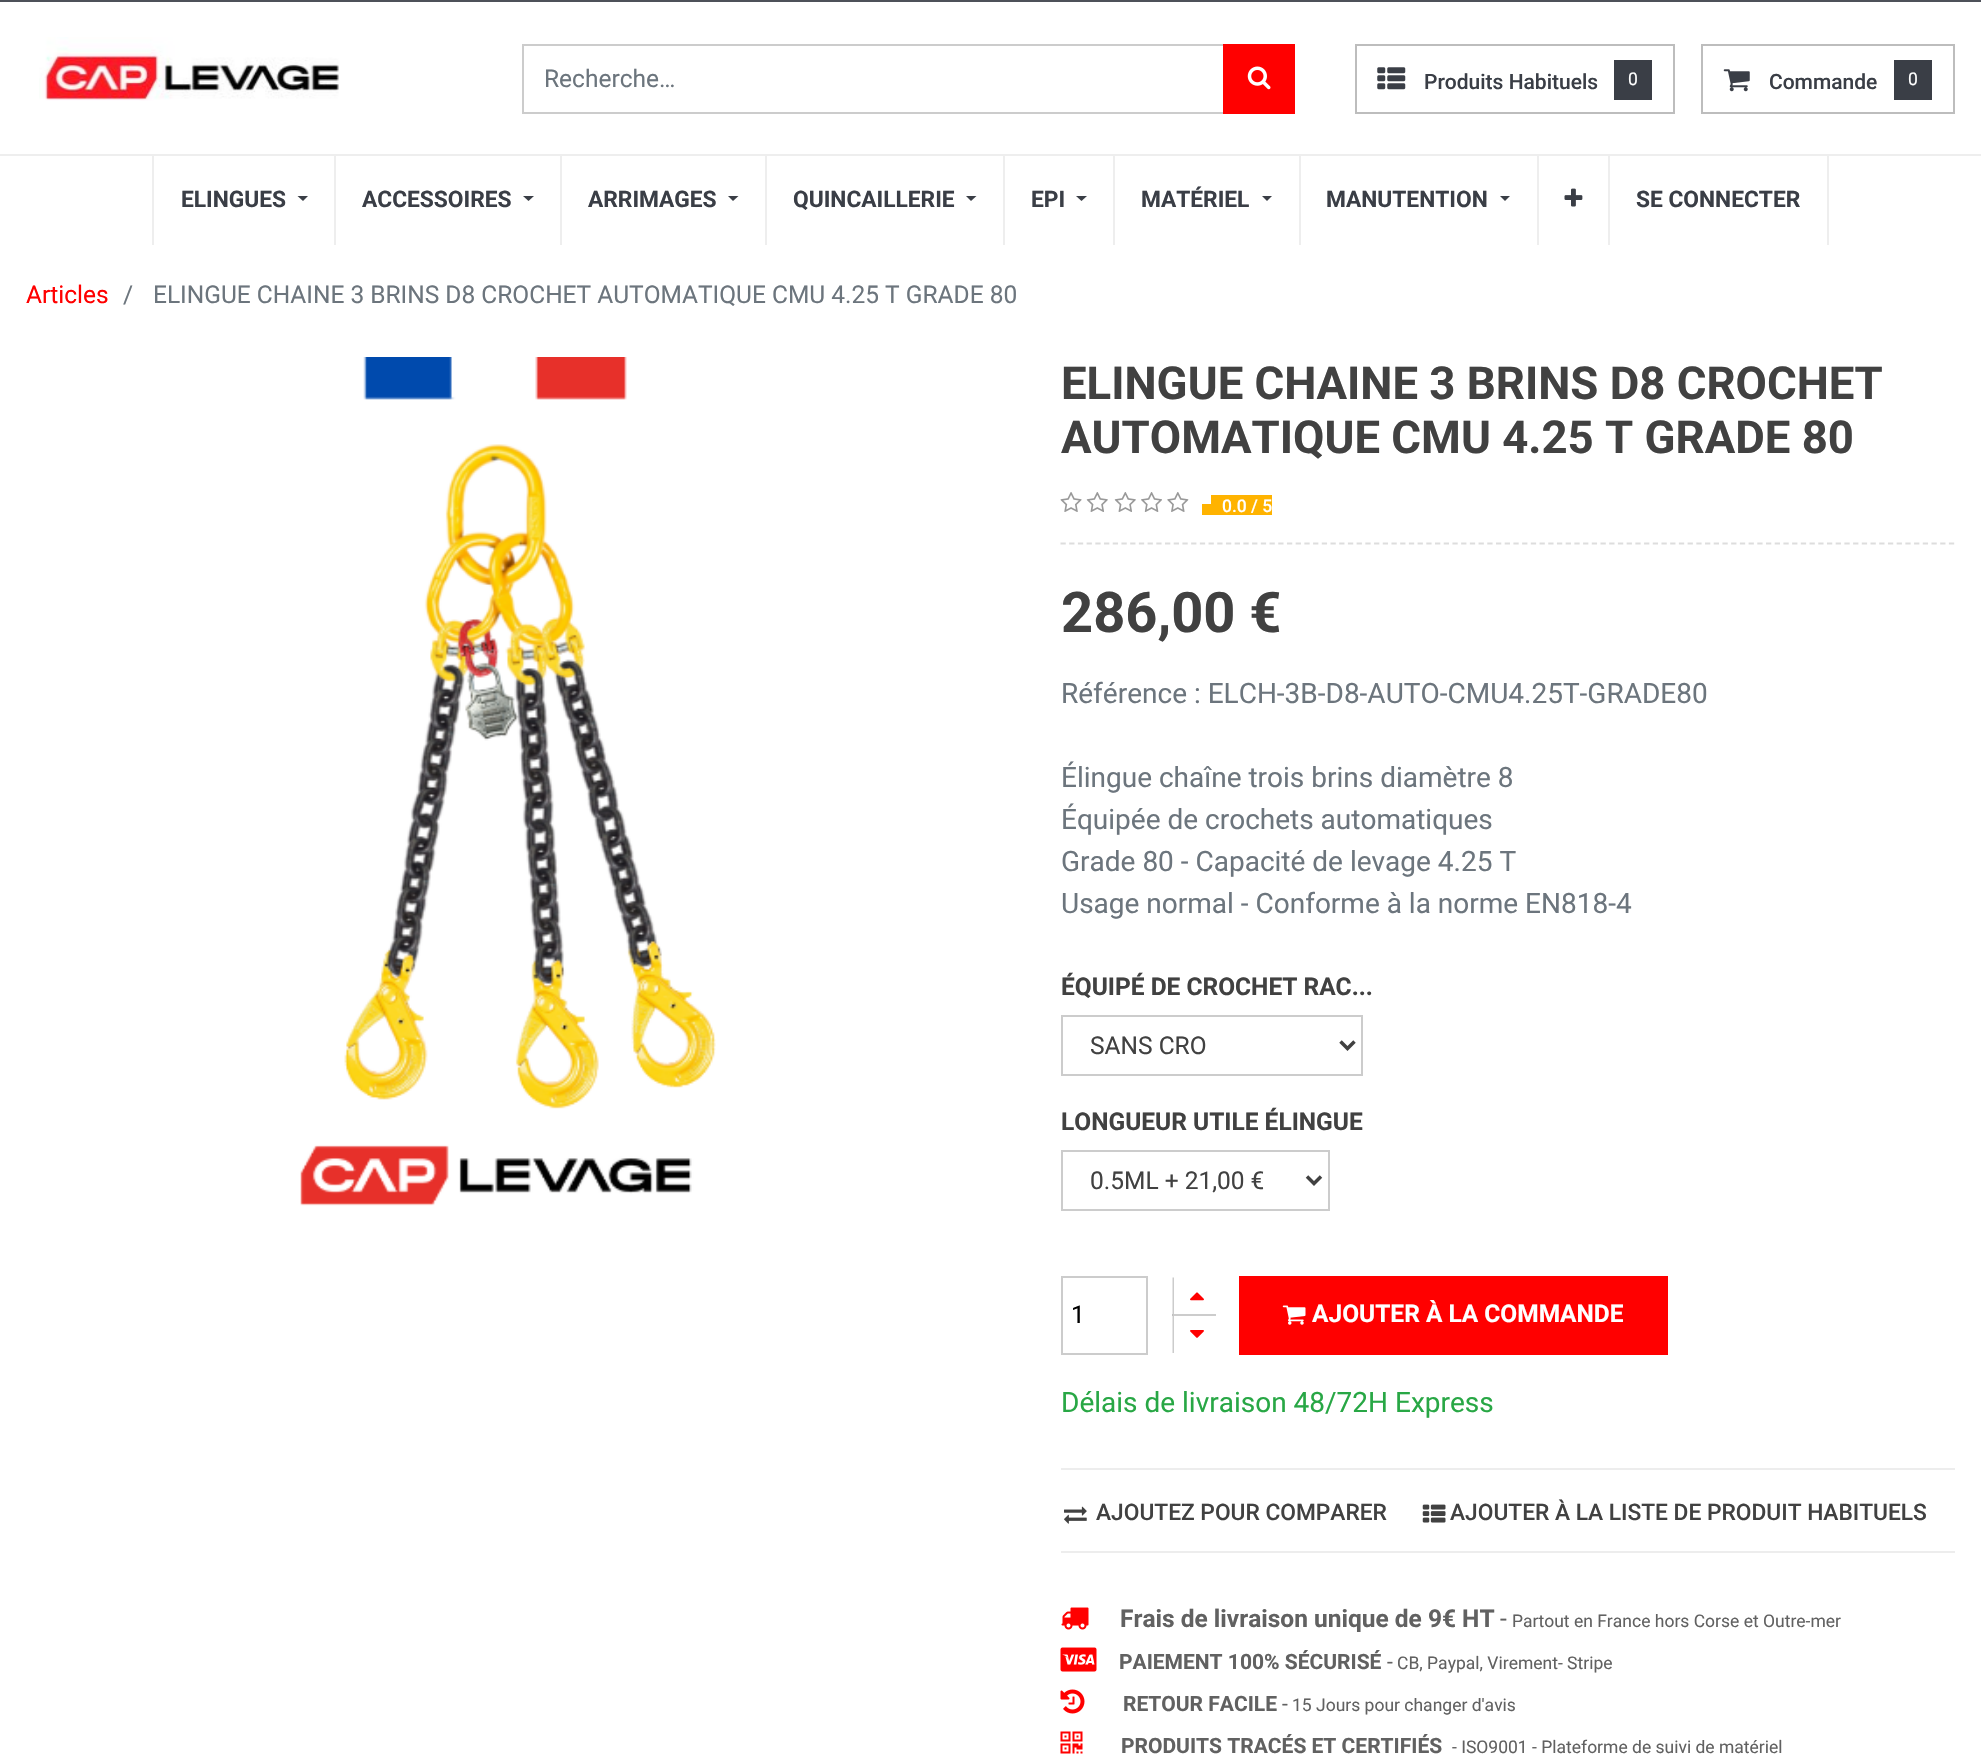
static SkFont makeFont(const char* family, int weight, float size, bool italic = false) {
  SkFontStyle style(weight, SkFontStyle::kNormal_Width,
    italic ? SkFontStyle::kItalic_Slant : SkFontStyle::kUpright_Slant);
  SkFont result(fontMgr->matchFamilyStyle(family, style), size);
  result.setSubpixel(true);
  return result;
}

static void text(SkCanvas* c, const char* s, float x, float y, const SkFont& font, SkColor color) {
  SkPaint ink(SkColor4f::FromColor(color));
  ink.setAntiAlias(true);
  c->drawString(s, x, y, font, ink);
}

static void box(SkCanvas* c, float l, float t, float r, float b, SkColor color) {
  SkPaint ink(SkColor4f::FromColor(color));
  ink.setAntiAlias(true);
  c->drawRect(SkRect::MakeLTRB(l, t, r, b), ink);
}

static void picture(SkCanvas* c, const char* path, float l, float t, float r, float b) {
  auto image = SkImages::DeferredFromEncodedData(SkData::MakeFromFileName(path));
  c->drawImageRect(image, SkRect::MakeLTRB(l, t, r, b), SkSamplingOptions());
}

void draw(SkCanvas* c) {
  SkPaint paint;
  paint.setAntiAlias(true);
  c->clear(0xffffffff);
  box(c, 0, 0, 1981, 2, 0xff4e5159);
  picture(c, "img_01.png", 39, 37, 339, 101);
  paint.setStyle(SkPaint::kStroke_Style);
  paint.setStrokeWidth(2);
  paint.setColor(0xffcccccc);
  c->drawRect(SkRect::MakeLTRB(523, 45, 1224, 113), paint);
  SkFont face1 = makeFont("Roboto", 400, 24.5f);
  text(c, "Recherche…", 544, 87, face1, 0xff6c757d);
  box(c, 1223, 44, 1295, 114, 0xffff0000);
  picture(c, "img_02.png", 1247, 66, 1271, 90);
  paint.setColor(0xffbdbdbd);
  c->drawRect(SkRect::MakeLTRB(1356, 45, 1674, 113), paint);
  picture(c, "img_03.png", 1377, 67, 1406, 90);
  SkFont face2 = makeFont("Roboto", 500, 21);
  text(c, "Produits Habituels", 1424, 89, face2, 0xff3a3e46);
  box(c, 1614, 60, 1652, 100, 0xff3a3e46);
  SkFont face3 = makeFont("Roboto", 400, 17.5f);
  text(c, "0", 1628, 85, face3, 0xffffffff);
  c->drawRect(SkRect::MakeLTRB(1702, 45, 1954, 113), paint);
  picture(c, "img_04.png", 1723, 69, 1750, 92);
  text(c, "Commande", 1769, 89, face2, 0xff3a3e46);
  box(c, 1894, 60, 1932, 100, 0xff3a3e46);
  text(c, "0", 1908, 85, face3, 0xffffffff);
  box(c, 0, 154, 1981, 156, 0xffeeeeee);
  box(c, 152, 156, 154, 245, 0xffeeeeee);
  SkFont face4 = makeFont("Roboto", 700, 22.75f);
  text(c, "ELINGUES", 181, 207, face4, 0xff3a3e46);
  paint.setStyle(SkPaint::kFill_Style);
  paint.setColor(0xff3a3e46);
  c->drawPath(SkPathBuilder().moveTo(297.5f, 196).lineTo(308, 196).lineTo(303, 201).close().detach(), paint);
  box(c, 334, 156, 336, 245, 0xffeeeeee);
  text(c, "ACCESSOIRES", 362, 207, face4, 0xff3a3e46);
  c->drawPath(SkPathBuilder().moveTo(523, 196).lineTo(534, 196).lineTo(528.5f, 201).close().detach(), paint);
  box(c, 560, 156, 562, 245, 0xffeeeeee);
  text(c, "ARRIMAGES", 588, 207, face4, 0xff3a3e46);
  c->drawPath(SkPathBuilder().moveTo(728, 196).lineTo(738.5f, 196).lineTo(733, 201).close().detach(), paint);
  box(c, 765, 156, 767, 245, 0xffeeeeee);
  text(c, "QUINCAILLERIE", 793, 207, face4, 0xff3a3e46);
  c->drawPath(SkPathBuilder().moveTo(966, 196).lineTo(976.5f, 196).lineTo(971, 201).close().detach(), paint);
  box(c, 1003, 156, 1005, 245, 0xffeeeeee);
  text(c, "EPI", 1031, 207, face4, 0xff3a3e46);
  c->drawPath(SkPathBuilder().moveTo(1076, 196).lineTo(1087, 196).lineTo(1081.5f, 201).close().detach(), paint);
  box(c, 1113, 156, 1115, 245, 0xffeeeeee);
  text(c, "MATÉRIEL", 1141, 207, face4, 0xff3a3e46);
  c->drawPath(SkPathBuilder().moveTo(1262, 196).lineTo(1272, 196).lineTo(1267, 201).close().detach(), paint);
  box(c, 1299, 156, 1301, 245, 0xffeeeeee);
  text(c, "MANUTENTION", 1326, 207, face4, 0xff3a3e46);
  c->drawPath(SkPathBuilder().moveTo(1500, 196).lineTo(1510, 196).lineTo(1505, 201).close().detach(), paint);
  box(c, 1537, 156, 1539, 245, 0xffeeeeee);
  picture(c, "img_05.png", 1564, 188, 1583, 207);
  box(c, 1827, 156, 1829, 245, 0xffeeeeee);
  box(c, 1608, 156, 1610, 245, 0xffeeeeee);
  text(c, "SE CONNECTER", 1636, 207, face4, 0xff3a3e46);
  text(c, "Articles", 26, 303, face1, 0xffff0000);
  text(c, "/", 123, 303, face1, 0xff6c757d);
  text(c, "ELINGUE CHAINE 3 BRINS D8 CROCHET AUTOMATIQUE CMU 4.25 T GRADE 80", 153, 303, face1, 0xff6c757d);
  picture(c, "img_06.png", 300, 357, 716, 1206);
  SkFont face5 = makeFont("Roboto", 700, 45.5f);
  text(c, "ELINGUE CHAINE 3 BRINS D8 CROCHET", 1061, 399, face5, 0xff414141);
  text(c, "AUTOMATIQUE CMU 4.25 T GRADE 80", 1061, 453, face5, 0xff414141);
  paint.setStyle(SkPaint::kStroke_Style);
  paint.setStrokeWidth(1.8f);
  paint.setColor(0xffdddddd);
  paint.setPathEffect(SkDashPathEffect::Make({{5.25f, 3.46f}}, 0));
  c->drawPath(SkPathBuilder().moveTo(1060.5f, 543.5f).lineTo(1955, 543.5f).detach(), paint);
  paint.setPathEffect(nullptr);
  picture(c, "img_07.png", 1060, 492, 1082, 512);
  picture(c, "img_08.png", 1086, 492, 1108, 512);
  picture(c, "img_08.png", 1114, 492, 1136, 512);
  picture(c, "img_09.png", 1141, 492, 1162, 512);
  picture(c, "img_10.png", 1167, 492, 1189, 512);
  box(c, 1211, 495, 1272, 515, 0xffffb300);
  SkFont face6 = makeFont("Roboto", 500, 17.5f);
  text(c, "0.0 / 5", 1222, 512, face6, 0xffffffff);
  box(c, 1202, 504, 1211, 515, 0xffffb300);
  SkFont face7 = makeFont("Roboto", 700, 56);
  text(c, "286,00 €", 1061, 632, face7, 0xff414141);
  SkFont face8 = makeFont("Roboto", 400, 28);
  text(c, "Référence : ELCH-3B-D8-AUTO-CMU4.25T-GRADE80", 1061, 703, face8, 0xff6c757d);
  text(c, "Élingue chaîne trois brins diamètre 8", 1061, 787, face8, 0xff6c757d);
  text(c, "Équipée de crochets automatiques", 1061, 829, face8, 0xff6c757d);
  text(c, "Grade 80 - Capacité de levage 4.25 T", 1061, 871, face8, 0xff6c757d);
  text(c, "Usage normal - Conforme à la norme EN818-4", 1061, 913, face8, 0xff6c757d);
  SkFont face9 = makeFont("Roboto", 700, 24.5f);
  text(c, "ÉQUIPÉ DE CROCHET RAC...", 1061, 995, face9, 0xff414141);
  paint.setStrokeWidth(2);
  paint.setColor(0xffcccccc);
  c->drawRect(SkRect::MakeLTRB(1062, 1016, 1362, 1075), paint);
  paint.setStrokeWidth(3.5f);
  paint.setColor(0xff414141);
  c->drawPath(SkPathBuilder().moveTo(1340.5f, 1041.5f).lineTo(1347.5f, 1048.5f).lineTo(1354.5f, 1041.5f).detach(), paint);
  text(c, "SANS CRO", 1090, 1054, face1, 0xff414141);
  text(c, "LONGUEUR UTILE ÉLINGUE", 1061, 1130, face9, 0xff414141);
  paint.setStrokeWidth(2);
  paint.setColor(0xffcccccc);
  c->drawRect(SkRect::MakeLTRB(1062, 1151, 1329, 1210), paint);
  paint.setStrokeWidth(3.5f);
  paint.setColor(0xff414141);
  c->drawPath(SkPathBuilder().moveTo(1307, 1176.5f).lineTo(1314, 1183.5f).lineTo(1321, 1176.5f).detach(), paint);
  text(c, "0.5ML + 21,00 €", 1090, 1189, face1, 0xff414141);
  paint.setStrokeWidth(2);
  paint.setColor(0xffcccccc);
  c->drawRect(SkRect::MakeLTRB(1062, 1277, 1147, 1354), paint);
  text(c, "1", 1071, 1323, face1, 0xff000000);
  paint.setStyle(SkPaint::kFill_Style);
  c->drawPath(SkPathBuilder().moveTo(1172, 1314).lineTo(1216, 1314).lineTo(1216, 1316).lineTo(1174, 1316).close().detach(), paint);
  paint.setColor(0x33000000);
  c->drawPath(SkPathBuilder().moveTo(1172.5f, 1353).lineTo(1172.5f, 1314).lineTo(1174, 1316).lineTo(1174, 1353).close().detach(), paint);
  box(c, 1173, 1314, 1216, 1316, 0xffffffff);
  c->drawPath(SkPathBuilder().moveTo(1216, 1316).lineTo(1172, 1316).lineTo(1174, 1314).lineTo(1216, 1314).close().detach(), paint);
  c->drawPath(SkPathBuilder().moveTo(1172.5f, 1316).lineTo(1172.5f, 1277.5f).lineTo(1174, 1277.5f).lineTo(1174, 1314).close().detach(), paint);
  picture(c, "img_11.png", 1190, 1292, 1204, 1301);
  picture(c, "img_12.png", 1190, 1330, 1204, 1338);
  box(c, 1239, 1276, 1668, 1355, 0xffff0000);
  picture(c, "img_13.png", 1282, 1305, 1306, 1325);
  text(c, "AJOUTER À LA COMMANDE", 1312, 1322, face9, 0xffffffff);
  text(c, "Délais de livraison 48/72H Express", 1061, 1412, face8, 0xff28a745);
  box(c, 1061, 1468, 1955, 1470, 0xffededed);
  picture(c, "img_14.png", 1064, 1506, 1087, 1524);
  SkFont face10 = makeFont("Roboto", 500, 22.75f);
  text(c, "AJOUTEZ POUR COMPARER", 1096, 1520, face10, 0xff414141);
  picture(c, "img_15.png", 1422, 1504, 1446, 1523);
  text(c, "AJOUTER À LA LISTE DE PRODUIT HABITUELS", 1450, 1520, face10, 0xff414141);
  box(c, 1061, 1551, 1955, 1553, 0xffededed);
  picture(c, "img_16.png", 1061, 1607, 1089, 1630);
  text(c, "Frais de livraison unique de 9€ HT", 1120, 1627, face9, 0xff616161);
  text(c, "-", 1500, 1627, face1, 0xff616161);
  text(c, "Partout en France hors Corse et Outre-mer", 1512, 1627, face3, 0xff616161);
  picture(c, "img_17.png", 1060, 1647, 1097, 1672);
  SkFont face11 = makeFont("Roboto", 700, 21);
  text(c, "PAIEMENT 100% SÉCURISÉ", 1119, 1669, face11, 0xff616161);
  SkFont face12 = makeFont("Roboto", 400, 21);
  text(c, "-", 1387, 1669, face12, 0xff616161);
  text(c, "CB, Paypal, Virement- Stripe", 1397, 1669, face3, 0xff616161);
  picture(c, "img_18.png", 1060, 1689, 1085, 1714);
  text(c, "RETOUR FACILE", 1123, 1711, face11, 0xff616161);
  text(c, "-", 1282, 1711, face12, 0xff616161);
  text(c, "15 Jours pour changer d'avis", 1292, 1711, face3, 0xff616161);
  picture(c, "img_19.png", 1060, 1731, 1083, 1754);
  text(c, "PRODUITS TRACÉS ET CERTIFIÉS", 1121, 1753, face11, 0xff616161);
  text(c, "- ISO9001 - Plateforme de suivi de matériel", 1452, 1753, face3, 0xff616161);
}
